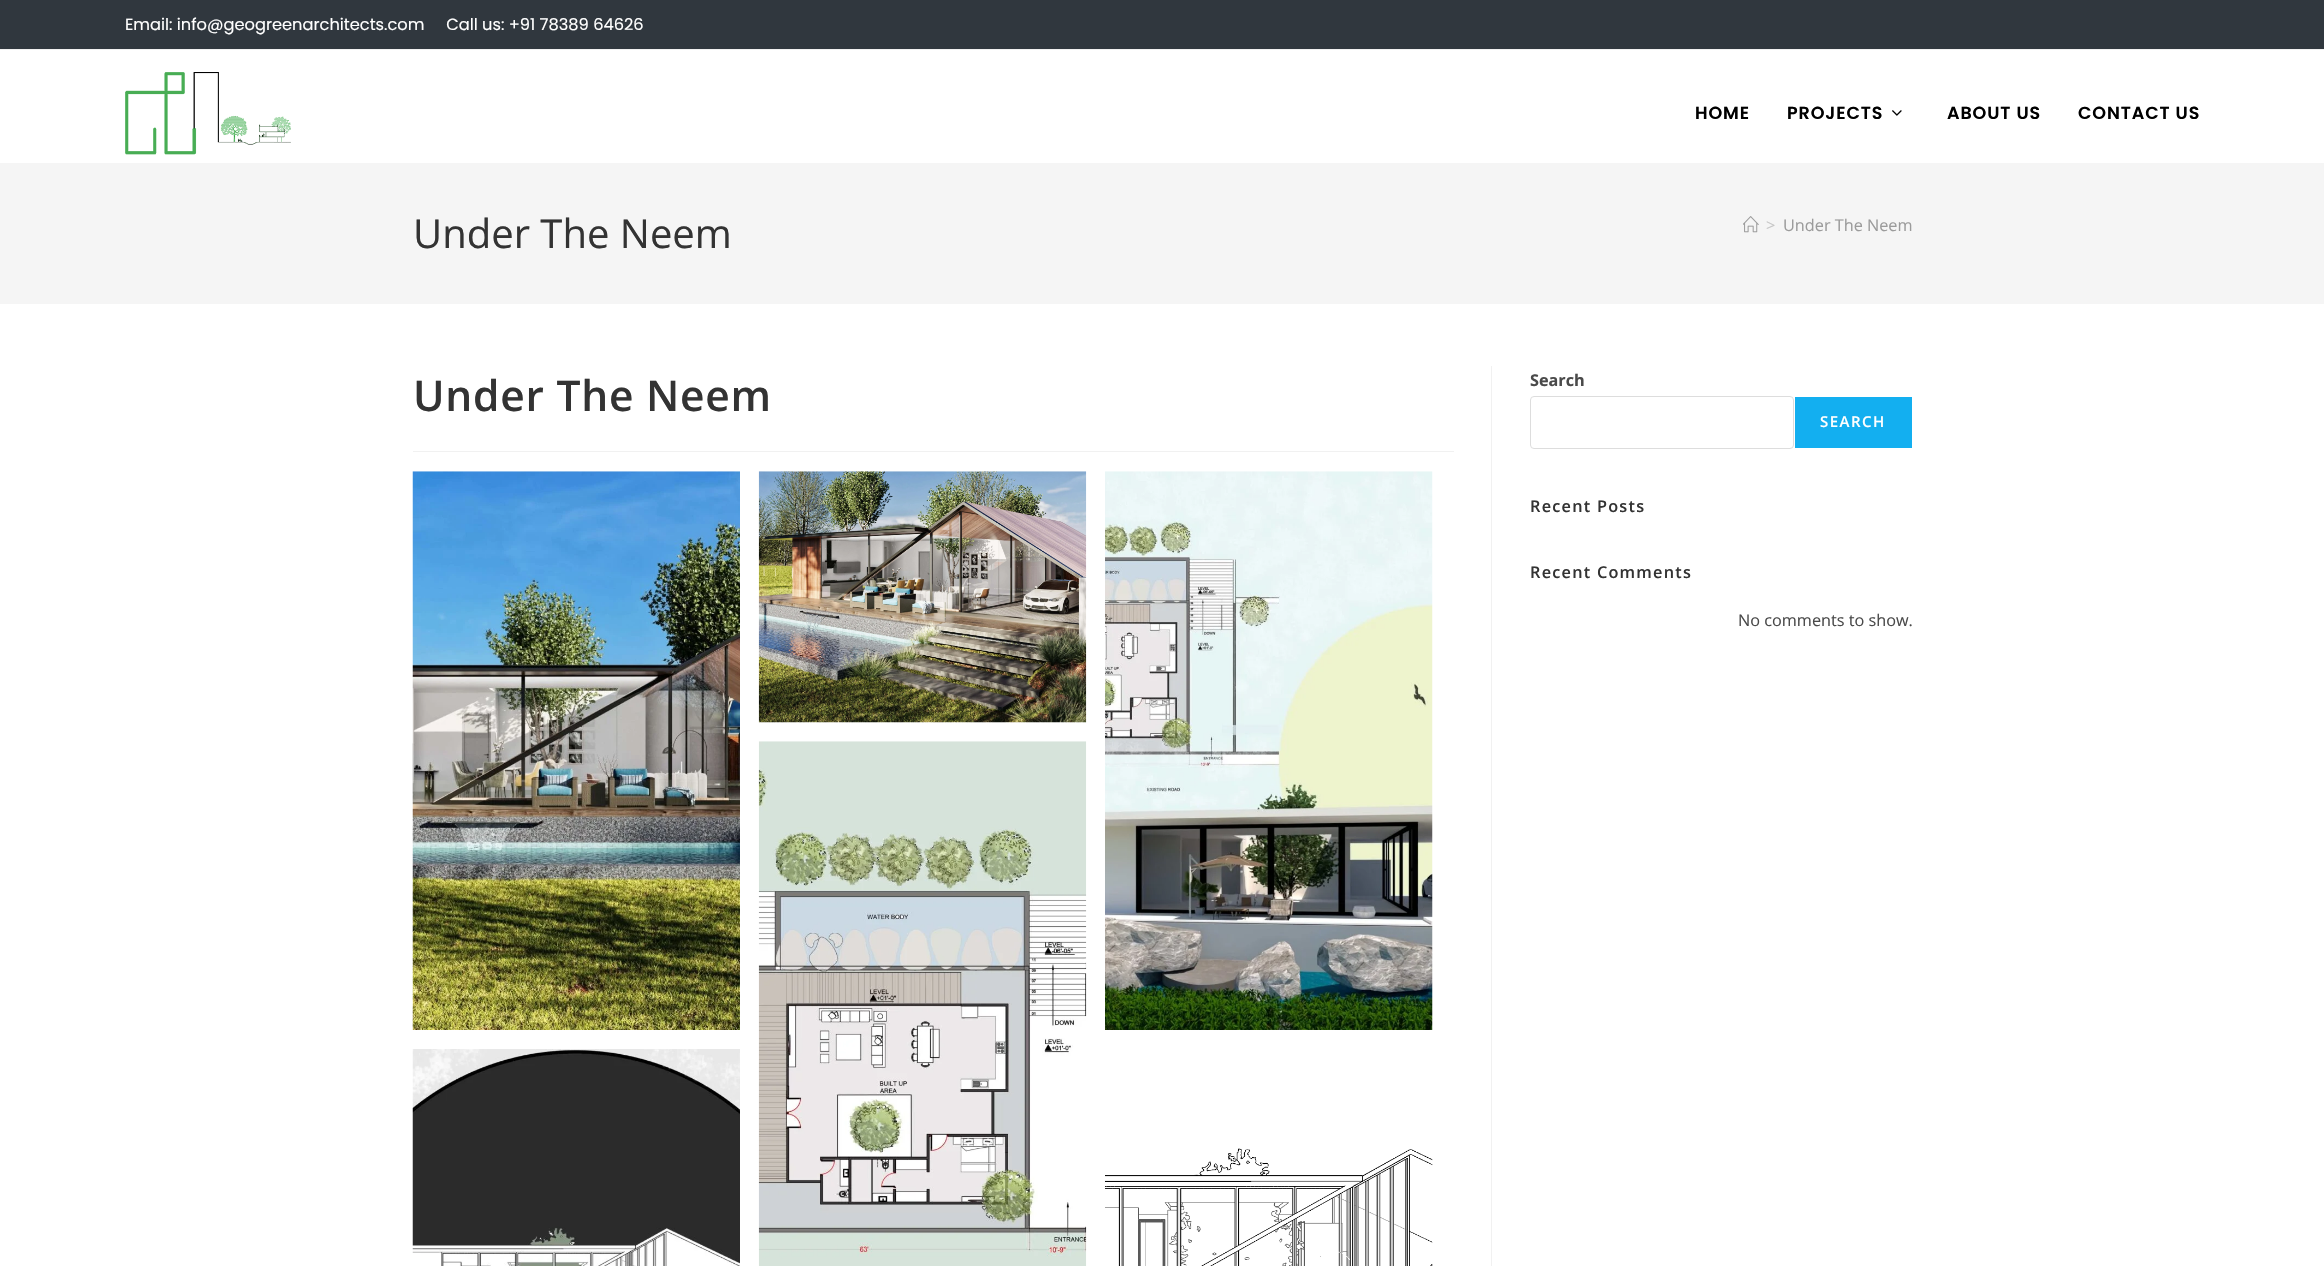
static SkFont makeFont(const char* family, int weight, float size, bool italic = false) {
  SkFontStyle style(weight, SkFontStyle::kNormal_Width,
    italic ? SkFontStyle::kItalic_Slant : SkFontStyle::kUpright_Slant);
  SkFont result(fontMgr->matchFamilyStyle(family, style), size);
  result.setSubpixel(true);
  return result;
}

static void text(SkCanvas* c, const char* s, float x, float y, const SkFont& font, SkColor color) {
  SkPaint ink(SkColor4f::FromColor(color));
  ink.setAntiAlias(true);
  c->drawString(s, x, y, font, ink);
}

static void spacedText(SkCanvas* c, const char* s, float x, float y, const SkFont& font, const SkPaint& ink, float letter, float word) {
  std::vector<SkGlyphID> glyphs(font.countText(s, strlen(s), SkTextEncoding::kUTF8));
  std::vector<float> xs(glyphs.size());
  font.textToGlyphs(s, strlen(s), SkTextEncoding::kUTF8, glyphs);
  font.getXPos(glyphs, xs, x);
  float extra = 0;
  for (size_t i = 0; i < glyphs.size(); i++) {
    xs[i] += extra;
    extra += letter + word * (glyphs[i] == font.unicharToGlyph(' '));
  }
  c->drawTextBlob(SkTextBlob::MakeFromPosHGlyphs(glyphs, xs, y, font), 0, 0, ink);
}

static void box(SkCanvas* c, float l, float t, float r, float b, SkColor color) {
  SkPaint ink(SkColor4f::FromColor(color));
  ink.setAntiAlias(true);
  c->drawRect(SkRect::MakeLTRB(l, t, r, b), ink);
}

static void picture(SkCanvas* c, const char* path, float l, float t, float r, float b) {
  auto image = SkImages::DeferredFromEncodedData(SkData::MakeFromFileName(path));
  c->drawImageRect(image, SkRect::MakeLTRB(l, t, r, b), SkSamplingOptions());
}

void draw(SkCanvas* c) {
  SkPaint paint;
  paint.setAntiAlias(true);
  c->clear(0xffffffff);
  box(c, 0, 0, 2324, 49, 0xff30373e);
  box(c, 0, 49, 2324, 50, 0xfff1f1f1);
  SkFont face1 = makeFont("Poppins", 400, 16.25f);
  text(c, "Email: info@geogreenarchitects.com     Call us: +91 78389 64626", 125, 30, face1, 0xffffffff);
  picture(c, "img_01.png", 125, 72, 291, 155);
  SkFont face2 = makeFont("Poppins", 600, 17.5f);
  paint.setColor(0xff000000);
  spacedText(c, "HOME", 1695, 119, face2, paint, 0.9f, 0);
  spacedText(c, "PROJECTS", 1787, 119, face2, paint, 0.9f, 0);
  picture(c, "img_02.png", 1892, 110, 1902, 116);
  spacedText(c, "ABOUT US", 1947, 119, face2, paint, 0.9f, 0);
  spacedText(c, "CONTACT US", 2078, 119, face2, paint, 0.9f, 0);
  box(c, 0, 163, 2324, 304, 0xfff5f5f5);
  SkFont face3 = makeFont("Open Sans", 400, 40);
  text(c, "Under The Neem", 413, 248, face3, 0xff333333);
  picture(c, "img_03.png", 1743, 216, 1759, 233);
  SkFont face4 = makeFont("Open Sans", 400, 16.25f);
  text(c, ">", 1766, 231, face4, 0xffc6c6c6);
  text(c, "Under The Neem", 1783, 231, face4, 0xff9b9b9b);
  box(c, 1491, 366, 1492, 1266, 0xfff1f1f1);
  box(c, 413, 451, 1454, 452, 0xfff1f1f1);
  SkFont face5 = makeFont("Open Sans", 600, 42.5f);
  paint.setColor(0xff333333);
  spacedText(c, "Under The Neem", 413, 411, face5, paint, 0.75f, 0);
  picture(c, "img_04.png", 412, 471, 740, 1030);
  picture(c, "img_05.png", 758, 471, 1087, 723);
  picture(c, "img_06.png", 1105, 471, 1433, 1030);
  picture(c, "img_07.png", 412, 1049, 740, 1266);
  picture(c, "img_08.png", 758, 741, 1087, 1266);
  picture(c, "img_09.png", 1105, 1148, 1433, 1266);
  SkFont face6 = makeFont("Open Sans", 700, 16.25f);
  text(c, "Search", 1530, 386, face6, 0xff4a4a4a);
  paint.setStyle(SkPaint::kStroke_Style);
  paint.setStrokeWidth(1);
  paint.setColor(0xffdddddd);
  c->drawRoundRect(SkRect::MakeLTRB(1530.5f, 396.5f, 1793.5f, 448.5f), 3.5f, 3.5f, paint);
  box(c, 1795, 397, 1912, 448, 0xff13aff0);
  SkFont face7 = makeFont("Open Sans", 600, 15);
  paint.setStyle(SkPaint::kFill_Style);
  paint.setColor(0xffffffff);
  spacedText(c, "SEARCH", 1820, 427, face7, paint, 1.5f, 0);
  SkFont face8 = makeFont("Open Sans", 600, 16.25f);
  paint.setColor(0xff333333);
  spacedText(c, "Recent Posts", 1530, 512, face8, paint, 1.25f, 0);
  spacedText(c, "Recent Comments", 1530, 578, face8, paint, 1.25f, 0);
  text(c, "No comments to show.", 1738, 626, face4, 0xff4a4a4a);
}
